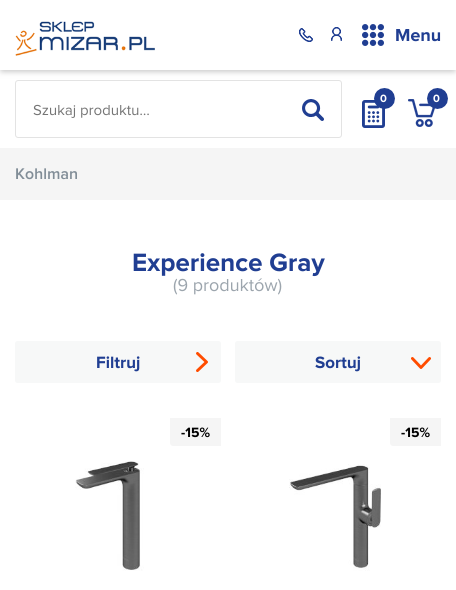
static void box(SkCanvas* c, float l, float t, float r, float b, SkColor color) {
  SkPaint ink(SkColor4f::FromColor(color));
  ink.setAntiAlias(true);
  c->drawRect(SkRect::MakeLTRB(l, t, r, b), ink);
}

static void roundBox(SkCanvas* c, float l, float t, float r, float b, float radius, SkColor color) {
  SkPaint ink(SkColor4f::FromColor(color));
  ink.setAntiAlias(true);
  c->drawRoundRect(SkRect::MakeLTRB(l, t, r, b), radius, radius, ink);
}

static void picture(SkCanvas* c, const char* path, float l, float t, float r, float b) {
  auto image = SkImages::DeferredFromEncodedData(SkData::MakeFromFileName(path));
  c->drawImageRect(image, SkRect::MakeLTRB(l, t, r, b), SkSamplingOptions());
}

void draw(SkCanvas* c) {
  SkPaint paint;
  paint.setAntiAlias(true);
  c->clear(0xffffffff);
  paint.setStyle(SkPaint::kStroke_Style);
  paint.setStrokeWidth(1);
  paint.setColor(0xffe3e3e3);
  c->drawRoundRect(SkRect::MakeLTRB(15.5f, 80.5f, 341.5f, 137.5f), 2.5f, 2.5f, paint);
  paint.setStyle(SkPaint::kFill_Style);
  paint.setColor(0x33000000);
  paint.setMaskFilter(SkMaskFilter::MakeBlur(kNormal_SkBlurStyle, 2.5f));
  c->drawRect(SkRect::MakeLTRB(0, 2, 456, 72), paint);
  paint.setMaskFilter(nullptr);
  box(c, 0, 0, 456, 70, 0xffffffff);
  picture(c, "img_01.png", 15, 21, 155, 56);
  picture(c, "img_02.png", 362, 24, 384, 46);
  picture(c, "img_03.png", 396, 29, 441, 42);
  picture(c, "img_04.png", 33, 104, 149, 118);
  picture(c, "img_05.png", 302, 99, 324, 121);
  picture(c, "img_06.png", 299, 28, 313, 42);
  picture(c, "img_07.png", 331, 27, 342, 41);
  picture(c, "img_09.png", 362, 100, 385, 128);
  paint.setColor(0xff203e92);
  c->drawCircle(384.5f, 98.5f, 10.5f, paint);
  picture(c, "img_08.png", 380, 94, 387, 103);
  c->drawCircle(437.5f, 98.5f, 10.5f, paint);
  picture(c, "img_08.png", 433, 94, 440, 103);
  picture(c, "img_10.png", 408, 99, 435, 127);
  box(c, 0, 148, 456, 200, 0xfff5f5f5);
  picture(c, "img_11.png", 16, 168, 77, 180);
  picture(c, "img_12.png", 133, 253, 325, 277);
  picture(c, "img_13.png", 173, 278, 282, 295);
  roundBox(c, 15, 341, 221, 383, 3, 0xfff7f8f8);
  picture(c, "img_14.png", 97, 356, 140, 372);
  picture(c, "img_15.png", 196, 352, 208, 372);
  roundBox(c, 235, 341, 441, 383, 3, 0xfff7f8f8);
  picture(c, "img_16.png", 315, 356, 361, 372);
  picture(c, "img_17.png", 411, 357, 431, 369);
  paint.setColor(0xfff5f5f5);
  c->drawPath(SkPathBuilder().moveTo(170, 418).lineTo(221, 418).lineTo(221, 446).lineTo(173, 446).cubicTo(171.5f, 446, 170, 444.5f, 170, 443).close().detach(), paint);
  picture(c, "img_18.png", 181, 427, 210, 438);
  picture(c, "img_19.png", 75, 461, 144, 571);
  c->drawPath(SkPathBuilder().moveTo(390, 418).lineTo(441, 418).lineTo(441, 446).lineTo(393, 446).cubicTo(391.5f, 446, 390, 444.5f, 390, 443).close().detach(), paint);
  picture(c, "img_18.png", 401, 427, 430, 438);
  picture(c, "img_20.png", 289, 464, 381, 571);
}
